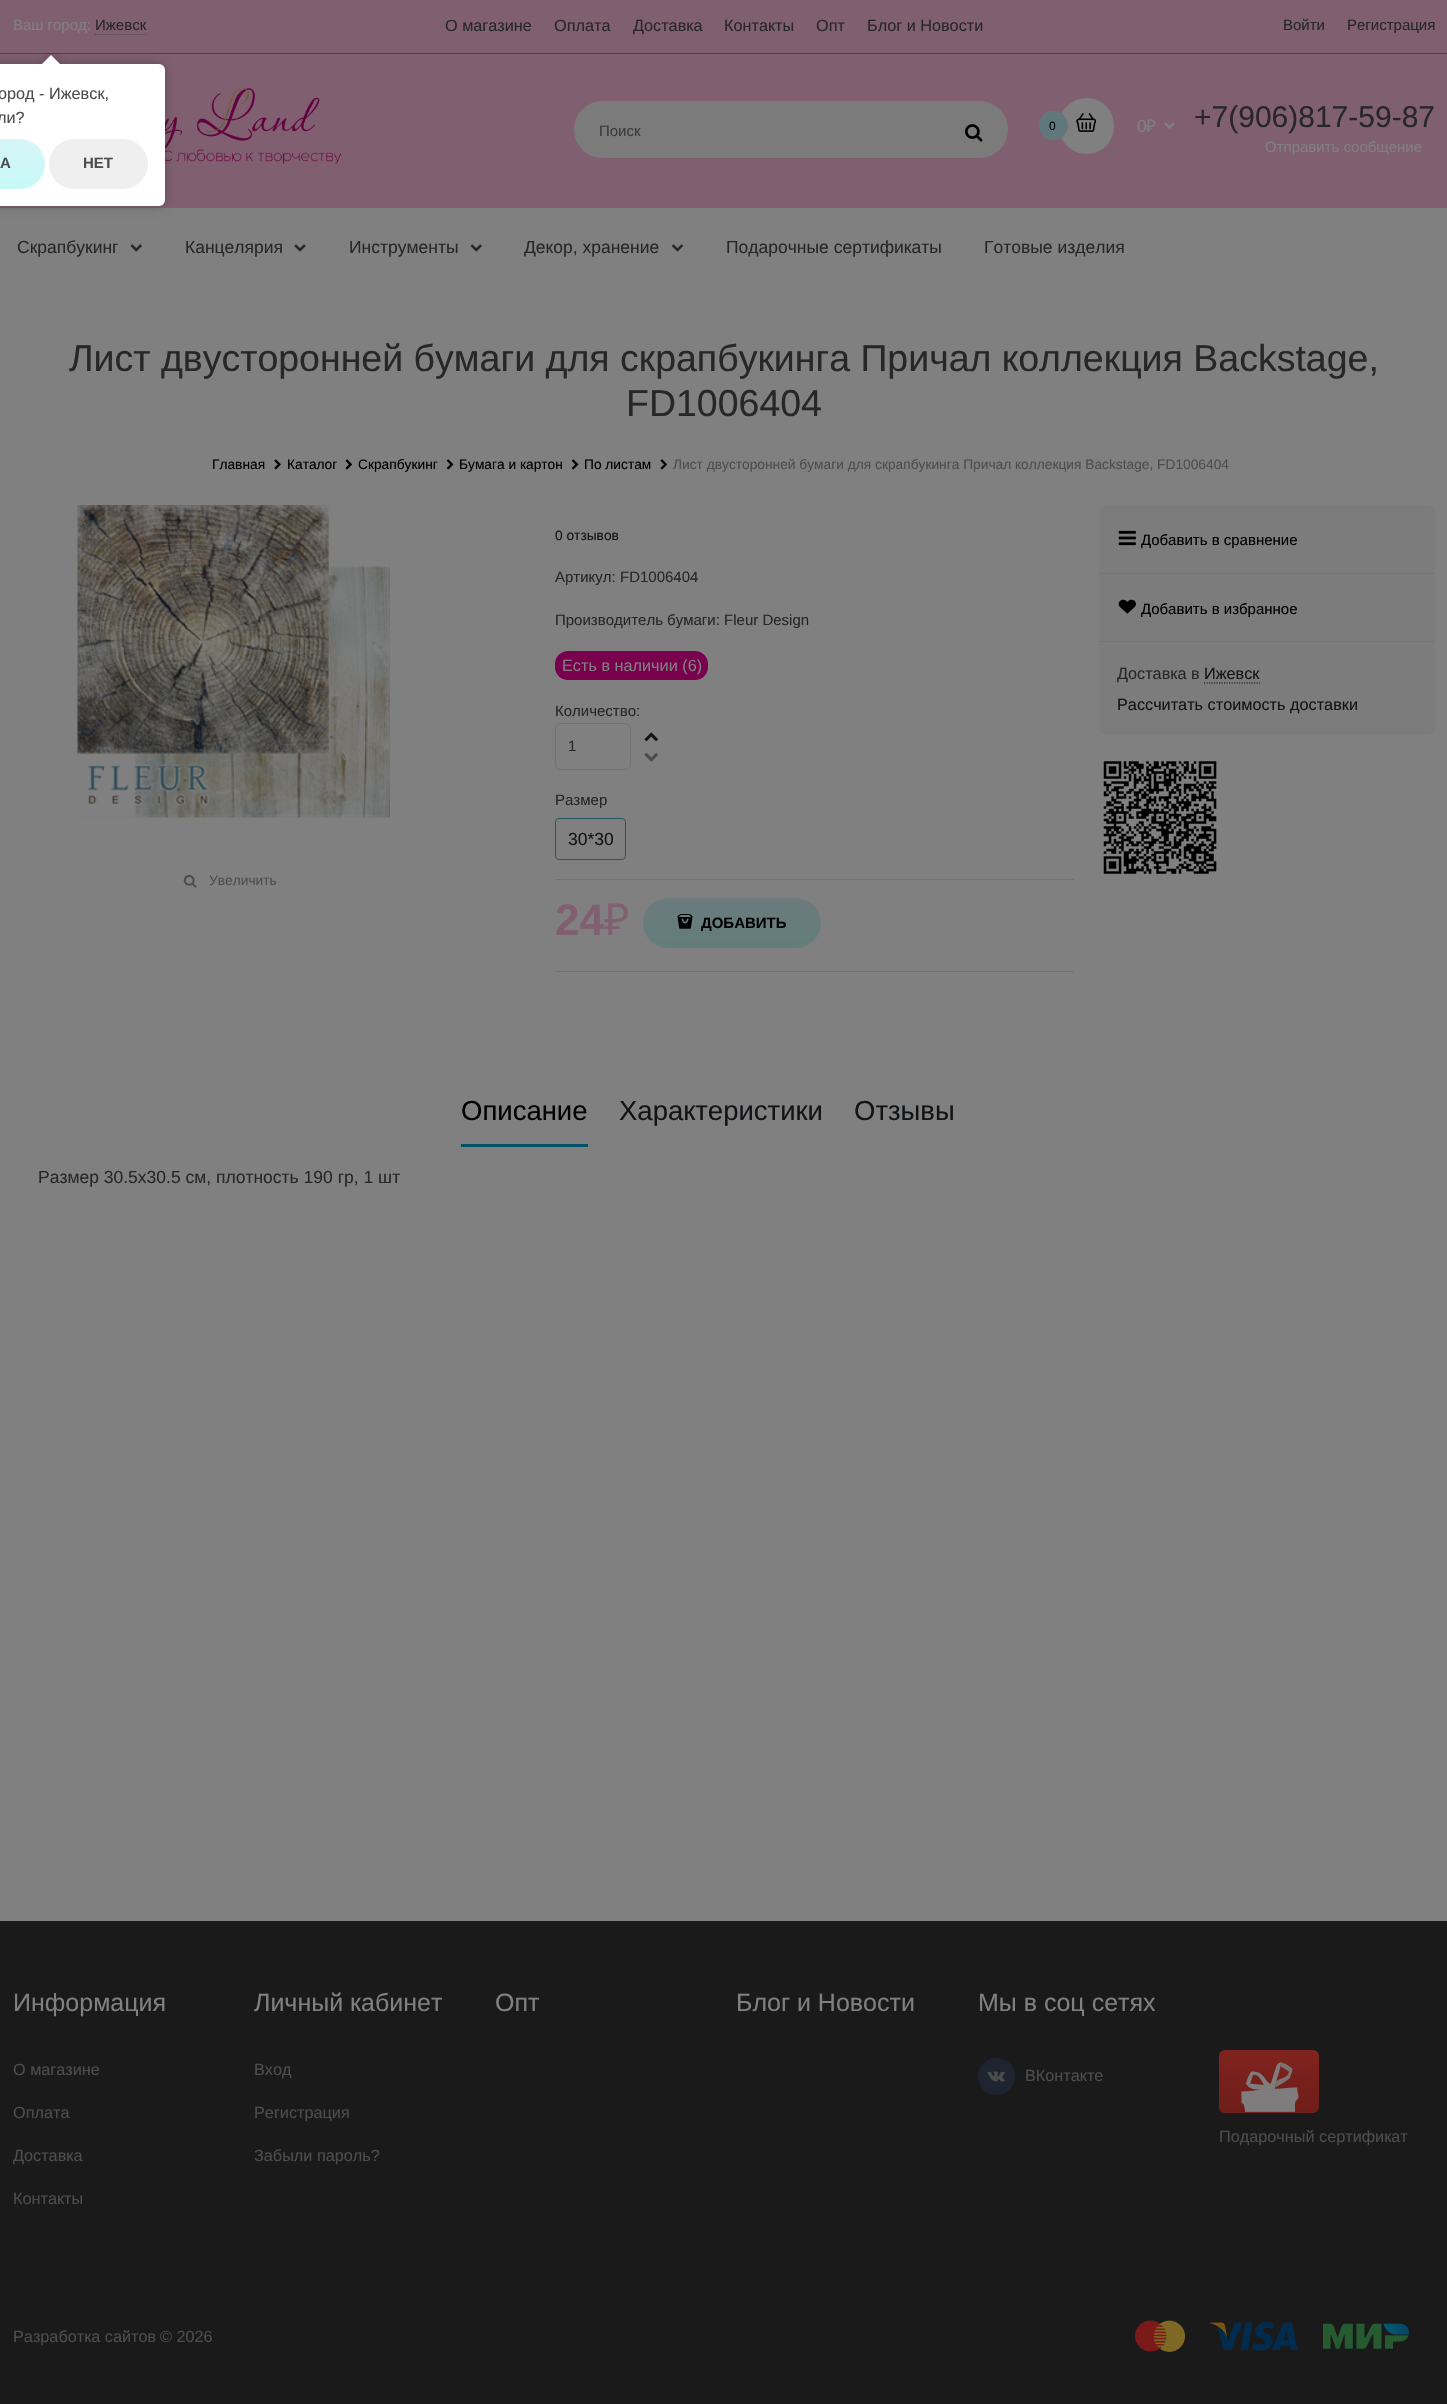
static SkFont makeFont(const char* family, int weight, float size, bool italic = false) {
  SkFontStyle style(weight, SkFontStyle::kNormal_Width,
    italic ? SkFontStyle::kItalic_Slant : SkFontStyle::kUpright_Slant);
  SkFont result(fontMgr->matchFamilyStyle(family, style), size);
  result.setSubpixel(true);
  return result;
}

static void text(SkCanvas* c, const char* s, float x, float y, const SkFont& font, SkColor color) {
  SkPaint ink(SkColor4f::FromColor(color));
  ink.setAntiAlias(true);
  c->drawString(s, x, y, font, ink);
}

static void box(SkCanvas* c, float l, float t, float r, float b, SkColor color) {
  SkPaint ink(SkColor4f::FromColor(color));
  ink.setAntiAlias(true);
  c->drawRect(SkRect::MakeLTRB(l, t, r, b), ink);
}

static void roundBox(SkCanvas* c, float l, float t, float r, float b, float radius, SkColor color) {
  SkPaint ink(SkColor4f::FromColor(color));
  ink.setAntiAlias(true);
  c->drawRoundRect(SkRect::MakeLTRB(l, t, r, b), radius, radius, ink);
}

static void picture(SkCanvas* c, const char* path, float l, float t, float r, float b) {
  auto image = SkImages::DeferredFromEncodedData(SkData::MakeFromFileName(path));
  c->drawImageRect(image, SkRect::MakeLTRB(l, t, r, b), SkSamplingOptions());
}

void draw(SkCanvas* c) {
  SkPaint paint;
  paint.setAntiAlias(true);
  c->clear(0xff808080);
  box(c, 0, 0, 1447, 208, 0xff806070);
  box(c, 0, 53, 1447, 54, 0xff712b4e);
  SkFont face1 = makeFont("Liberation Sans", 400, 15);
  text(c, "Ваш город:", 13, 30, face1, 0xff808080);
  text(c, "Ижевск", 95, 30, face1, 0xff272727);
  paint.setStyle(SkPaint::kStroke_Style);
  paint.setStrokeWidth(1.2f);
  paint.setColor(0xff4a4b4e);
  paint.setPathEffect(SkDashPathEffect::Make({{1.25f, 1.25f}}, 0));
  c->drawPath(SkPathBuilder().moveTo(95, 34.5f).lineTo(146, 34.5f).detach(), paint);
  paint.setPathEffect(nullptr);
  SkFont face2 = makeFont("Liberation Sans", 400, 16.25f);
  text(c, "О магазине", 445, 31, face2, 0xff272727);
  text(c, "Оплата", 554, 31, face2, 0xff272727);
  text(c, "Доставка", 633, 31, face2, 0xff272727);
  text(c, "Контакты", 724, 31, face2, 0xff272727);
  text(c, "Опт", 816, 31, face2, 0xff272727);
  text(c, "Блог и Новости", 867, 31, face2, 0xff272727);
  text(c, "Войти", 1283, 30, face1, 0xff272727);
  text(c, "Регистрация", 1347, 30, face1, 0xff272727);
  picture(c, "img_01.png", 165, 88, 342, 164);
  roundBox(c, 574, 101, 1008, 158, 28.5f, 0xff7b7b7b);
  text(c, "Поиск", 599, 136, face1, 0xff3b3b3b);
  picture(c, "img_02.png", 965, 124, 983, 142);
  roundBox(c, 1059, 98, 1114, 154, 27.5f, 0xff808080);
  paint.setStyle(SkPaint::kFill_Style);
  paint.setColor(0xff60787c);
  c->drawCircle(1053.5f, 125.5f, 14.5f, paint);
  SkFont face3 = makeFont("Liberation Sans", 400, 12);
  text(c, "0", 1049, 130, face3, 0xff000000);
  picture(c, "img_03.png", 1076, 113, 1096, 132);
  SkFont face4 = makeFont("Liberation Sans", 400, 17.5f);
  text(c, "0", 1137, 132, face4, 0xff808080);
  SkFont face5 = makeFont("Noto Sans", 400, 17.5f);
  text(c, "₽", 1146, 132, face5, 0xff808080);
  picture(c, "img_04.png", 1164, 122, 1175, 129);
  SkFont face6 = makeFont("Liberation Sans", 400, 30);
  text(c, "+7(906)817-59-87", 1194, 127, face6, 0xff272727);
  text(c, "Отправить сообщение", 1265, 152, face1, 0xff808080);
  text(c, "Скрапбукинг", 17, 253, face4, 0xff272727);
  picture(c, "img_05.png", 130, 244, 142, 252);
  text(c, "Канцелярия", 185, 253, face4, 0xff272727);
  picture(c, "img_06.png", 294, 244, 306, 252);
  text(c, "Инструменты", 349, 253, face4, 0xff272727);
  picture(c, "img_05.png", 470, 244, 482, 252);
  text(c, "Декор, хранение", 524, 253, face4, 0xff272727);
  picture(c, "img_07.png", 671, 244, 684, 252);
  text(c, "Подарочные сертификаты", 726, 253, face4, 0xff272727);
  text(c, "Готовые изделия", 984, 253, face4, 0xff272727);
  SkFont face7 = makeFont("Liberation Sans", 400, 37.5f);
  text(c, "Лист двусторонней бумаги для скрапбукинга Причал коллекция Backstage,", 69, 371, face7, 0xff272727);
  text(c, "FD1006404", 626, 416, face7, 0xff272727);
  SkFont face8 = makeFont("Liberation Sans", 400, 13.75f);
  text(c, "Главная", 212, 469, face8, 0xff000000);
  picture(c, "img_08.png", 274, 459, 281, 470);
  text(c, "Каталог", 287, 469, face8, 0xff000000);
  picture(c, "img_09.png", 345, 459, 352, 470);
  text(c, "Скрапбукинг", 358, 469, face8, 0xff000000);
  picture(c, "img_10.png", 446, 459, 454, 470);
  text(c, "Бумага и картон", 459, 469, face8, 0xff000000);
  picture(c, "img_10.png", 571, 459, 579, 470);
  text(c, "По листам", 584, 469, face8, 0xff000000);
  picture(c, "img_09.png", 660, 459, 667, 470);
  text(c, "Лист двусторонней бумаги для скрапбукинга Причал коллекция Backstage, FD1006404", 673, 469, face8, 0xff4d4d4d);
  picture(c, "img_11.png", 77, 505, 390, 818);
  picture(c, "img_12.png", 183, 874, 197, 888);
  text(c, "Увеличить", 209, 885, face8, 0xff4d4d4d);
  text(c, "0 отзывов", 555, 540, face8, 0xff131416);
  text(c, "Артикул:", 555, 582, face1, 0xff272727);
  text(c, "FD1006404", 620, 582, face1, 0xff272727);
  text(c, "Производитель бумаги: Fleur Design", 555, 625, face1, 0xff272727);
  roundBox(c, 555, 651, 708, 680, 13, 0xff78004c);
  text(c, "Есть в наличии (6)", 562, 671, face2, 0xff808080);
  text(c, "Количество:", 555, 716, face1, 0xff272727);
  paint.setStyle(SkPaint::kStroke_Style);
  paint.setStrokeWidth(1);
  paint.setColor(0xff717272);
  c->drawRoundRect(SkRect::MakeLTRB(555.5f, 723.5f, 630.5f, 769.5f), 5.5f, 5.5f, paint);
  text(c, "1", 568, 751, face1, 0xff272727);
  picture(c, "img_13.png", 644, 732, 658, 742);
  picture(c, "img_14.png", 644, 753, 658, 762);
  text(c, "Размер", 555, 805, face1, 0xff272727);
  paint.setColor(0xff275864);
  c->drawRoundRect(SkRect::MakeLTRB(555.5f, 818.5f, 625.5f, 859.5f), 3.5f, 3.5f, paint);
  text(c, "30*30", 568, 845, face4, 0xff131416);
  box(c, 555, 879, 1074, 880, 0xff717272);
  box(c, 555, 971, 1074, 972, 0xff717272);
  SkFont face9 = makeFont("Liberation Sans", 700, 44);
  text(c, "24", 555, 935, face9, 0xff806070);
  SkFont face10 = makeFont("Noto Sans", 400, 44);
  text(c, "₽", 604, 935, face10, 0xff806070);
  paint.setStyle(SkPaint::kFill_Style);
  {
    const SkColor colors[] = {0xff6c7b7d, 0xff637d7b};
    const float stops[] = {0, 1};
    const SkPoint ends[] = {{732, 898}, {732, 948}};
    paint.setShader(SkGradientShader::MakeLinear(ends, colors, stops, 2, SkTileMode::kClamp));
    paint.setAlpha(255);
  }
  c->drawRoundRect(SkRect::MakeLTRB(643, 898, 821, 948), 25, 25, paint);
  picture(c, "img_15.png", 677, 914, 693, 929);
  SkFont face11 = makeFont("Liberation Sans", 700, 15);
  text(c, "ДОБАВИТЬ", 701, 928, face11, 0xff000000);
  roundBox(c, 1099, 505, 1435, 735, 6, 0xff7c7c7c);
  box(c, 1099, 573, 1435, 574, 0xff757575);
  picture(c, "img_16.png", 1118, 530, 1136, 546);
  text(c, "Добавить в сравнение", 1141, 545, face1, 0xff000000);
  box(c, 1099, 641, 1435, 642, 0xff757575);
  picture(c, "img_17.png", 1118, 599, 1136, 614);
  text(c, "Добавить в избранное", 1141, 614, face1, 0xff000000);
  text(c, "Доставка в", 1117, 679, face2, 0xff272727);
  text(c, "Ижевск", 1204, 679, face2, 0xff131416);
  paint.setStyle(SkPaint::kStroke_Style);
  paint.setStrokeWidth(1.2f);
  paint.setShader(nullptr);
  paint.setColor(0xff131416);
  paint.setPathEffect(SkDashPathEffect::Make({{1.25f, 1.25f}}, 0));
  c->drawPath(SkPathBuilder().moveTo(1204, 683).lineTo(1260, 683).detach(), paint);
  paint.setPathEffect(nullptr);
  text(c, "Рассчитать стоимость доставки", 1117, 710, face2, 0xff131416);
  picture(c, "img_18.png", 1103, 761, 1217, 874);
  box(c, 461, 1144, 588, 1147, 0xff005266);
  SkFont face12 = makeFont("Liberation Sans", 400, 27.5f);
  text(c, "Описание", 461, 1120, face12, 0xff000000);
  text(c, "Характеристики", 619, 1120, face12, 0xff131416);
  text(c, "Отзывы", 854, 1120, face12, 0xff131416);
  text(c, "Размер 30.5х30.5 см, плотность 190 гр, 1 шт", 38, 1183, face4, 0xff272727);
  box(c, 0, 1921, 1447, 2404, 0xff1a1a1a);
  SkFont face13 = makeFont("Liberation Sans", 400, 25);
  text(c, "Информация", 13, 2011, face13, 0xff808080);
  text(c, "О магазине", 13, 2075, face2, 0xff4d4d4d);
  text(c, "Оплата", 13, 2118, face2, 0xff4d4d4d);
  text(c, "Доставка", 13, 2161, face2, 0xff4d4d4d);
  text(c, "Контакты", 13, 2204, face2, 0xff4d4d4d);
  text(c, "Личный кабинет", 254, 2011, face13, 0xff808080);
  text(c, "Вход", 254, 2075, face2, 0xff4d4d4d);
  text(c, "Регистрация", 254, 2118, face2, 0xff4d4d4d);
  text(c, "Забыли пароль?", 254, 2161, face2, 0xff4d4d4d);
  text(c, "Опт", 495, 2011, face13, 0xff808080);
  text(c, "Блог и Новости", 736, 2011, face13, 0xff808080);
  text(c, "Мы в соц сетях", 978, 2011, face13, 0xff808080);
  paint.setStyle(SkPaint::kFill_Style);
  paint.setColor(0xff1e2530);
  c->drawCircle(996.5f, 2076.5f, 18.5f, paint);
  picture(c, "img_19.png", 987, 2071, 1005, 2082);
  text(c, "ВКонтакте", 1025, 2081, face2, 0xff4d4d4d);
  {
    const SkColor colors[] = {0xff80231e, 0xff7f221e, 0xff741f1a, 0xff701d19, 0xff712521};
    const float stops[] = {0, 0.12f, 0.67f, 0.98f, 1};
    const SkPoint ends[] = {{1269, 2050}, {1269, 2113}};
    paint.setShader(SkGradientShader::MakeLinear(ends, colors, stops, 5, SkTileMode::kClamp));
    paint.setAlpha(255);
  }
  c->drawRoundRect(SkRect::MakeLTRB(1219, 2050, 1319, 2113), 6, 6, paint);
  picture(c, "img_20.png", 1241, 2062, 1299, 2112);
  text(c, "Подарочный сертификат", 1219, 2142, face2, 0xff4d4d4d);
  text(c, "Разработка сайтов", 13, 2342, face2, 0xff4d4d4d);
  text(c, "© 2026", 160, 2342, face2, 0xff4d4d4d);
  picture(c, "img_21.png", 1135, 2320, 1185, 2352);
  picture(c, "img_22.png", 1210, 2322, 1298, 2351);
  picture(c, "img_23.png", 1323, 2323, 1410, 2349);
  paint.setShader(nullptr);
  paint.setColor(0x40000000);
  paint.setMaskFilter(SkMaskFilter::MakeBlur(kNormal_SkBlurStyle, 5.5f));
  c->drawRoundRect(SkRect::MakeLTRB(-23, 64, 165, 206), 6, 6, paint);
  paint.setMaskFilter(nullptr);
  roundBox(c, -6, 64, 165, 206, 6, 0xffffffff);
  c->save();
  c->clipRect(SkRect::MakeLTRB(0, 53, 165, 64));
  paint.setMaskFilter(SkMaskFilter::MakeBlur(kNormal_SkBlurStyle, 5.5f));
  c->drawRect(SkRect::MakeLTRB(45, 58, 58, 70), paint);
  paint.setMaskFilter(nullptr);
  c->restore();
  c->save();
  c->clipRect(SkRect::MakeLTRB(0, 53, 165, 64));
  paint.setColor(0xffffffff);
  c->drawPath(SkPathBuilder().moveTo(51, 55).lineTo(60, 64).lineTo(51, 72.5f).lineTo(42, 64).close().detach(), paint);
  c->restore();
  text(c, "ород - Ижевск,", -2, 99, face2, 0xff4d4d4d);
  text(c, "ли?", -3, 123, face2, 0xff4d4d4d);
  {
    const SkColor colors[] = {0xffd7f5fa, 0xffc6faf6};
    const float stops[] = {0, 1};
    const SkPoint ends[] = {{0, 139}, {0, 189}};
    paint.setShader(SkGradientShader::MakeLinear(ends, colors, stops, 2, SkTileMode::kClamp));
    paint.setAlpha(255);
  }
  c->drawRoundRect(SkRect::MakeLTRB(-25, 139, 45, 189), 25, 25, paint);
  text(c, "А", 0, 168, face11, 0xff4d4d4d);
  roundBox(c, 49, 139, 148, 189, 25, 0xffefefef);
  text(c, "НЕТ", 83, 168, face11, 0xff4d4d4d);
}
